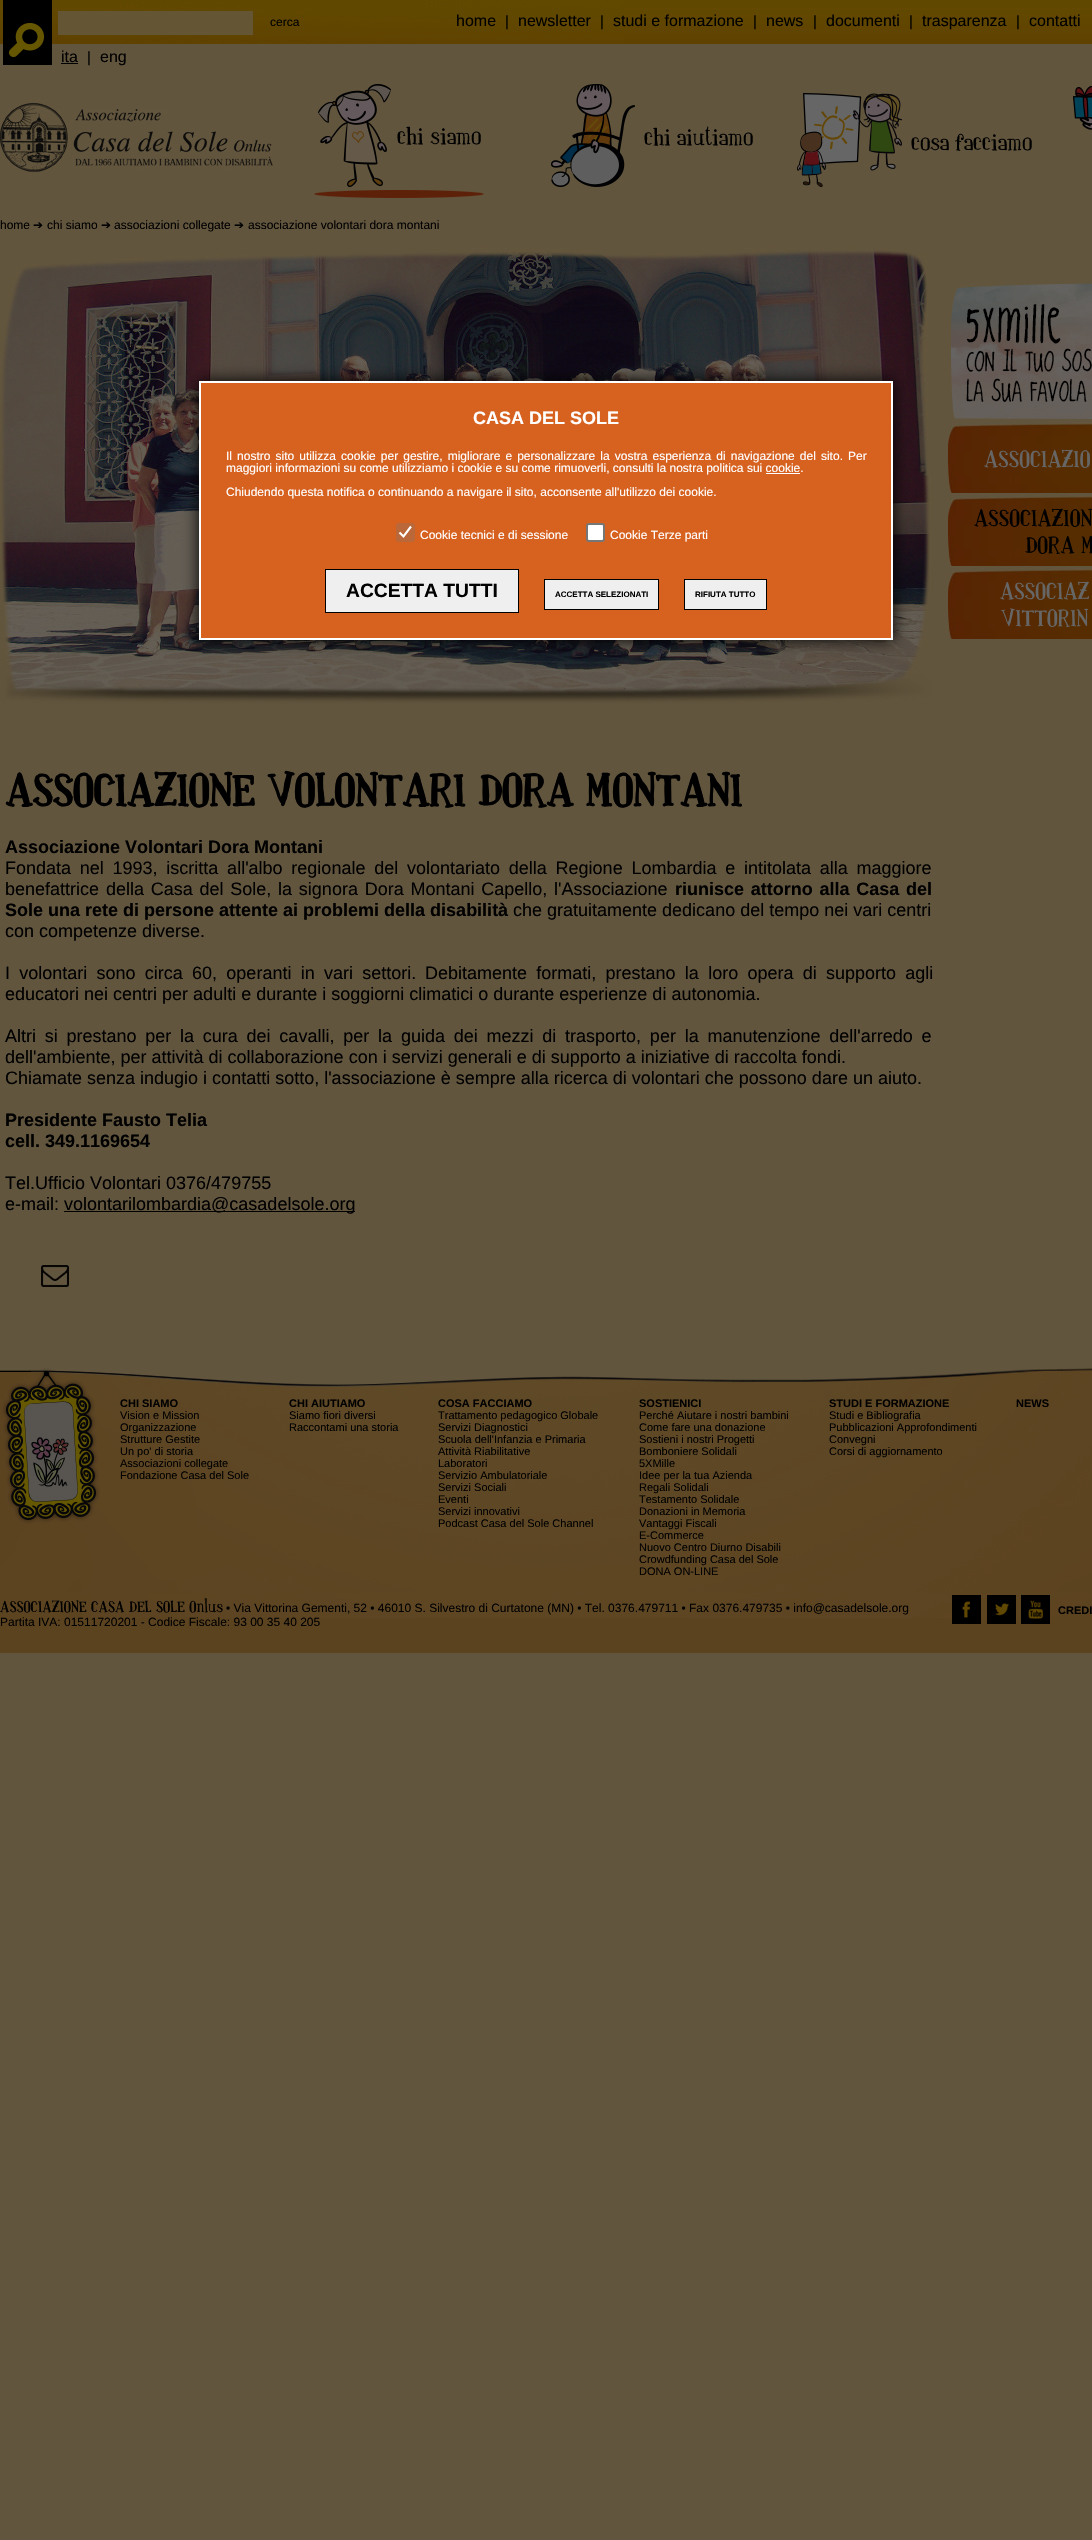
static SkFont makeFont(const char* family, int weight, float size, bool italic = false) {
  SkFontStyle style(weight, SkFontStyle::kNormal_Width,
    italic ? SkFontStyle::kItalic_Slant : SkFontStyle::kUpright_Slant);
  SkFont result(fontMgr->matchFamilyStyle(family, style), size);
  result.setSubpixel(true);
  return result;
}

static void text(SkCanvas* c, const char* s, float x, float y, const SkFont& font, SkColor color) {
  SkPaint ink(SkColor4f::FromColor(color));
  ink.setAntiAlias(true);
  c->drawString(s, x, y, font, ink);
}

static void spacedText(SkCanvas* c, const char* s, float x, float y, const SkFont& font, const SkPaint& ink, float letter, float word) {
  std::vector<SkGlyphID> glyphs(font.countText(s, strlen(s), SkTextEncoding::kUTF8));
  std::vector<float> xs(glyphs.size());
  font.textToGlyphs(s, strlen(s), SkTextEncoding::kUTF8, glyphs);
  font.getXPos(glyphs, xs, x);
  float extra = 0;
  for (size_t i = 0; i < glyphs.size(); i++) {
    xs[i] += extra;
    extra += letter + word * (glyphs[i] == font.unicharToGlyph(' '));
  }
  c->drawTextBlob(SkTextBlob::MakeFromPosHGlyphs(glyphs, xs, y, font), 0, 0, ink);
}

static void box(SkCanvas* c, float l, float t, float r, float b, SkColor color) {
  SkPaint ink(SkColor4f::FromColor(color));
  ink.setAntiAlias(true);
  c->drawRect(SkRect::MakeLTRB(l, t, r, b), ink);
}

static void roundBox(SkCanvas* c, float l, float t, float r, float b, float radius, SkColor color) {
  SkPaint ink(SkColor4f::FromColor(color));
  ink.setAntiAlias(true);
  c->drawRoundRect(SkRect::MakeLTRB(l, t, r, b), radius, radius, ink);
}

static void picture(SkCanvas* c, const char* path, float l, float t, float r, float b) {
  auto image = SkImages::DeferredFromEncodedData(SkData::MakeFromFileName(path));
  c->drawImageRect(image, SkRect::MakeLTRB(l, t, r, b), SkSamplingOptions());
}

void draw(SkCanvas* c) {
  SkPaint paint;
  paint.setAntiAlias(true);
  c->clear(0xffffffff);
  picture(c, "img_01.png", 0, 0, 1092, 2540);
  picture(c, "img_02.png", 2, 0, 624, 65);
  box(c, 58, 11, 253, 35, 0xff645634);
  picture(c, "img_03.png", 264, 14, 305, 30);
  SkFont face1 = makeFont("Liberation Sans", 400, 12);
  text(c, "cerca", 270, 26, face1, 0xff000000);
  SkFont face2 = makeFont("Liberation Sans", 400, 16);
  text(c, "ita", 61, 62, face2, 0xff000000);
  box(c, 61, 63, 78, 64, 0xff000000);
  SkFont face3 = makeFont("Liberation Sans", 400, 15);
  text(c, "|", 87, 62, face3, 0xff000000);
  text(c, "eng", 100, 62, face2, 0xff000000);
  text(c, "home", 456, 26, face2, 0xff000000);
  text(c, "|", 505, 26, face3, 0xff000000);
  text(c, "newsletter", 518, 26, face2, 0xff000000);
  text(c, "|", 600, 26, face3, 0xff000000);
  text(c, "studi e formazione", 613, 26, face2, 0xff000000);
  text(c, "|", 753, 26, face3, 0xff000000);
  text(c, "news", 766, 26, face2, 0xff000000);
  text(c, "|", 813, 26, face3, 0xff000000);
  text(c, "documenti", 826, 26, face2, 0xff000000);
  text(c, "|", 909, 26, face3, 0xff000000);
  text(c, "trasparenza", 922, 26, face2, 0xff000000);
  text(c, "|", 1016, 26, face3, 0xff000000);
  text(c, "contatti", 1029, 26, face2, 0xff000000);
  picture(c, "img_04.png", 0, 67, 296, 203);
  picture(c, "img_05.png", 314, 84, 484, 198);
  picture(c, "img_06.png", 551, 84, 753, 187);
  picture(c, "img_07.png", 797, 93, 1032, 187);
  picture(c, "img_08.png", 1073, 86, 1092, 130);
  text(c, "home", 0, 229, face1, 0xff000000);
  SkFont face4 = makeFont("DejaVu Sans", 400, 12);
  text(c, "➔", 33, 229, face4, 0xff000000);
  text(c, "chi siamo", 47, 229, face1, 0xff000000);
  text(c, "➔", 101, 229, face4, 0xff000000);
  text(c, "associazioni collegate", 114, 229, face1, 0xff000000);
  text(c, "➔", 234, 229, face4, 0xff000000);
  text(c, "associazione volontari dora montani", 248, 229, face1, 0xff000000);
  picture(c, "img_09.png", 949, 283, 1092, 420);
  picture(c, "img_10.png", 948, 420, 1092, 493);
  SkFont face5 = makeFont("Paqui", 400, 24);
  text(c, "ASSOCIAZIO", 984, 467, face5, 0xff666666);
  picture(c, "img_10.png", 948, 493, 1092, 566);
  text(c, "ASSOCIAZION", 974, 526, face5, 0xff000000);
  text(c, "DORA M", 1025, 553, face5, 0xff000000);
  picture(c, "img_10.png", 948, 566, 1092, 639);
  text(c, "ASSOCIAZ", 1000, 599, face5, 0xff666666);
  text(c, "VITTORIN", 1001, 626, face5, 0xff666666);
  picture(c, "img_11.png", 0, 246, 932, 704);
  SkFont face6 = makeFont("Paqui", 700, 46);
  text(c, "ASSOCIAZIONE VOLONTARI DORA MONTANI", 5, 806, face6, 0xff000000);
  SkFont face7 = makeFont("Liberation Sans", 700, 18);
  text(c, "Associazione Volontari Dora Montani", 5, 853, face7, 0xff000000);
  SkFont face8 = makeFont("Liberation Sans", 400, 18);
  paint.setColor(0xff000000);
  spacedText(c, "Fondata nel 1993, iscritta all'albo regionale del", 5, 874, face8, paint, 0, 3.75f);
  spacedText(c, "volontariato della Regione Lombardia e intitolata alla maggiore", 407, 874, face8, paint, 0, 3.75f);
  text(c, "benefattrice", 5, 895, face8, 0xff000000);
  spacedText(c, "della Casa del Sole, la signora Dora Montani Capello, l'Associazione", 106, 895, face8, paint, 0, 1.75f);
  spacedText(c, "riunisce attorno alla Casa del", 675, 895, face7, paint, 0, 1.75f);
  text(c, "Sole una rete di persone attente ai problemi della disabilità", 5, 916, face7, 0xff000000);
  text(c, "che gratuitamente dedicano del tempo nei vari centri", 513, 916, face8, 0xff000000);
  text(c, "con competenze diverse.", 5, 937, face8, 0xff000000);
  spacedText(c, "I volontari sono circa 60, operanti in vari settori.", 5, 979, face8, paint, 0, 4.25f);
  spacedText(c, "Debitamente formati, prestano la loro opera di supporto agli", 425, 979, face8, paint, 0, 4.25f);
  text(c, "educatori nei centri per adulti e durante i soggiorni climatici o durante esperienze di autonomia.", 5, 1000, face8, 0xff000000);
  spacedText(c, "Altri si prestano per la cura dei cavalli, per la", 5, 1042, face8, paint, 0, 3.75f);
  spacedText(c, "guida dei mezzi di trasporto, per la manutenzione dell'arredo e", 401, 1042, face8, paint, 0, 3.75f);
  text(c, "dell'ambiente, per attività di collaborazione con i servizi generali e di supporto a iniziative di raccolta fondi.", 5, 1063, face8, 0xff000000);
  text(c, "Chiamate senza indugio i contatti sotto, l'associazione è sempre alla ricerca di volontari che possono dare un aiuto.", 5, 1084, face8, 0xff000000);
  text(c, "Presidente Fausto Telia", 5, 1126, face7, 0xff000000);
  text(c, "cell. 349.1169654", 5, 1147, face7, 0xff000000);
  text(c, "Tel.Ufficio Volontari 0376/479755", 5, 1189, face8, 0xff000000);
  text(c, "e-mail:", 5, 1210, face8, 0xff000000);
  box(c, 64, 1211, 355, 1212, 0xff000000);
  text(c, "volontarilombardia@casadelsole.org", 64, 1210, face8, 0xff000000);
  picture(c, "img_12.png", 41, 1265, 69, 1287);
  paint.setMaskFilter(SkMaskFilter::MakeBlur(kNormal_SkBlurStyle, 7.5f));
  c->drawRect(SkRect::MakeLTRB(199, 381, 893, 640), paint);
  paint.setMaskFilter(nullptr);
  paint.setColor(0xffd7611f);
  c->drawRect(SkRect::MakeLTRB(200, 382, 892, 639), paint);
  paint.setStyle(SkPaint::kStroke_Style);
  paint.setStrokeWidth(2);
  paint.setColor(0xffffffff);
  c->drawRect(SkRect::MakeLTRB(200, 382, 892, 639), paint);
  text(c, "CASA DEL SOLE", 473, 424, face7, 0xffffffff);
  paint.setStyle(SkPaint::kFill_Style);
  spacedText(c, "Il nostro sito utilizza cookie per gestire, migliorare e personalizzare la vostra esperienza di navigazione del sito. Per", 226, 460, face1, paint, 0, 1.75f);
  text(c, "maggiori informazioni su come utilizziamo i cookie e su come rimuoverli, consulti la nostra politica sui cookie.", 226, 472, face1, 0xffffffff);
  box(c, 766, 473, 800, 474, 0xffffffff);
  text(c, "Chiudendo questa notifica o continuando a navigare il sito, acconsente all'utilizzo dei cookie.", 226, 496, face1, 0xffffffff);
  roundBox(c, 396, 523, 415, 542, 3, 0xffba6739);
  paint.setStyle(SkPaint::kStroke_Style);
  paint.setStrokeWidth(2.1f);
  c->drawPath(SkPathBuilder().moveTo(399.5f, 532.5f).lineTo(403.5f, 536.5f).lineTo(411, 526.5f).detach(), paint);
  text(c, "Cookie tecnici e di sessione", 420, 539, face1, 0xffffffff);
  paint.setStyle(SkPaint::kFill_Style);
  c->drawRoundRect(SkRect::MakeLTRB(587, 524, 604, 541), 2, 2, paint);
  paint.setStyle(SkPaint::kStroke_Style);
  paint.setStrokeWidth(2);
  paint.setColor(0xff767676);
  c->drawRoundRect(SkRect::MakeLTRB(587, 524, 604, 541), 2, 2, paint);
  text(c, "Cookie Terze parti", 610, 539, face1, 0xffffffff);
  paint.setStyle(SkPaint::kFill_Style);
  paint.setColor(0xffefefef);
  c->drawRect(SkRect::MakeLTRB(325.5f, 569.5f, 518.5f, 612.5f), paint);
  paint.setStyle(SkPaint::kStroke_Style);
  paint.setStrokeWidth(1);
  paint.setColor(0xff000000);
  c->drawRect(SkRect::MakeLTRB(325.5f, 569.5f, 518.5f, 612.5f), paint);
  SkFont face9 = makeFont("Liberation Sans", 700, 19.25f);
  text(c, "ACCETTA TUTTI", 346, 597, face9, 0xff000000);
  paint.setStyle(SkPaint::kFill_Style);
  paint.setColor(0xffefefef);
  c->drawRect(SkRect::MakeLTRB(544.5f, 579.5f, 658.5f, 609.5f), paint);
  paint.setStyle(SkPaint::kStroke_Style);
  paint.setColor(0xff000000);
  c->drawRect(SkRect::MakeLTRB(544.5f, 579.5f, 658.5f, 609.5f), paint);
  SkFont face10 = makeFont("Liberation Sans", 700, 8);
  text(c, "ACCETTA SELEZIONATI", 555, 597, face10, 0xff000000);
  paint.setStyle(SkPaint::kFill_Style);
  paint.setColor(0xffefefef);
  c->drawRect(SkRect::MakeLTRB(684.5f, 579.5f, 766.5f, 609.5f), paint);
  paint.setStyle(SkPaint::kStroke_Style);
  paint.setColor(0xff000000);
  c->drawRect(SkRect::MakeLTRB(684.5f, 579.5f, 766.5f, 609.5f), paint);
  text(c, "RIFIUTA TUTTO", 695, 597, face10, 0xff000000);
  picture(c, "img_13.png", 0, 1618, 1092, 1653);
  picture(c, "img_14.png", 0, 1367, 1092, 1618);
  SkFont face11 = makeFont("Liberation Sans", 700, 11);
  text(c, "CHI SIAMO", 120, 1407, face11, 0xff000000);
  SkFont face12 = makeFont("Liberation Sans", 400, 11);
  text(c, "Vision e Mission", 120, 1419, face12, 0xff000000);
  text(c, "Organizzazione", 120, 1431, face12, 0xff000000);
  text(c, "Strutture Gestite", 120, 1443, face12, 0xff000000);
  text(c, "Un po' di storia", 120, 1455, face12, 0xff000000);
  text(c, "Associazioni collegate", 120, 1467, face12, 0xff000000);
  text(c, "Fondazione Casa del Sole", 120, 1479, face12, 0xff000000);
  text(c, "CHI AIUTIAMO", 289, 1407, face11, 0xff000000);
  text(c, "Siamo fiori diversi", 289, 1419, face12, 0xff000000);
  text(c, "Raccontami una storia", 289, 1431, face12, 0xff000000);
  text(c, "COSA FACCIAMO", 438, 1407, face11, 0xff000000);
  text(c, "Trattamento pedagogico Globale", 438, 1419, face12, 0xff000000);
  text(c, "Servizi Diagnostici", 438, 1431, face12, 0xff000000);
  text(c, "Scuola dell'Infanzia e Primaria", 438, 1443, face12, 0xff000000);
  text(c, "Attività Riabilitative", 438, 1455, face12, 0xff000000);
  text(c, "Laboratori", 438, 1467, face12, 0xff000000);
  text(c, "Servizio Ambulatoriale", 438, 1479, face12, 0xff000000);
  text(c, "Servizi Sociali", 438, 1491, face12, 0xff000000);
  text(c, "Eventi", 438, 1503, face12, 0xff000000);
  text(c, "Servizi innovativi", 438, 1515, face12, 0xff000000);
  text(c, "Podcast Casa del Sole Channel", 438, 1527, face12, 0xff000000);
  text(c, "SOSTIENICI", 639, 1407, face11, 0xff000000);
  text(c, "Perché Aiutare i nostri bambini", 639, 1419, face12, 0xff000000);
  text(c, "Come fare una donazione", 639, 1431, face12, 0xff000000);
  text(c, "Sostieni i nostri Progetti", 639, 1443, face12, 0xff000000);
  text(c, "Bomboniere Solidali", 639, 1455, face12, 0xff000000);
  text(c, "5XMille", 639, 1467, face12, 0xff000000);
  text(c, "Idee per la tua Azienda", 639, 1479, face12, 0xff000000);
  text(c, "Regali Solidali", 639, 1491, face12, 0xff000000);
  text(c, "Testamento Solidale", 639, 1503, face12, 0xff000000);
  text(c, "Donazioni in Memoria", 639, 1515, face12, 0xff000000);
  text(c, "Vantaggi Fiscali", 639, 1527, face12, 0xff000000);
  text(c, "E-Commerce", 639, 1539, face12, 0xff000000);
  text(c, "Nuovo Centro Diurno Disabili", 639, 1551, face12, 0xff000000);
  text(c, "Crowdfunding Casa del Sole", 639, 1563, face12, 0xff000000);
  text(c, "DONA ON-LINE", 639, 1575, face12, 0xff000000);
  text(c, "STUDI E FORMAZIONE", 829, 1407, face11, 0xff000000);
  text(c, "Studi e Bibliografia", 829, 1419, face12, 0xff000000);
  text(c, "Pubblicazioni Approfondimenti", 829, 1431, face12, 0xff000000);
  text(c, "Convegni", 829, 1443, face12, 0xff000000);
  text(c, "Corsi di aggiornamento", 829, 1455, face12, 0xff000000);
  text(c, "NEWS", 1016, 1407, face11, 0xff000000);
  SkFont face13 = makeFont("Paqui", 400, 16);
  text(c, "ASSOCIAZIONE CASA DEL SOLE Onlus", 0, 1612, face13, 0xff000000);
  text(c, "• Via Vittorina Gementi, 52 • 46010 S. Silvestro di Curtatone (MN) • Tel. 0376.479711 • Fax 0376.479735 • info@casadelsole.org", 226, 1612, face1, 0xff000000);
  text(c, "Partita IVA: 01511720201 - Codice Fiscale: 93 00 35 40 205", 0, 1626, face1, 0xff000000);
  picture(c, "img_15.png", 952, 1595, 981, 1624);
  picture(c, "img_16.png", 987, 1595, 1016, 1624);
  picture(c, "img_17.png", 1021, 1595, 1050, 1624);
  text(c, "CREDI", 1058, 1614, face11, 0xff000000);
}
